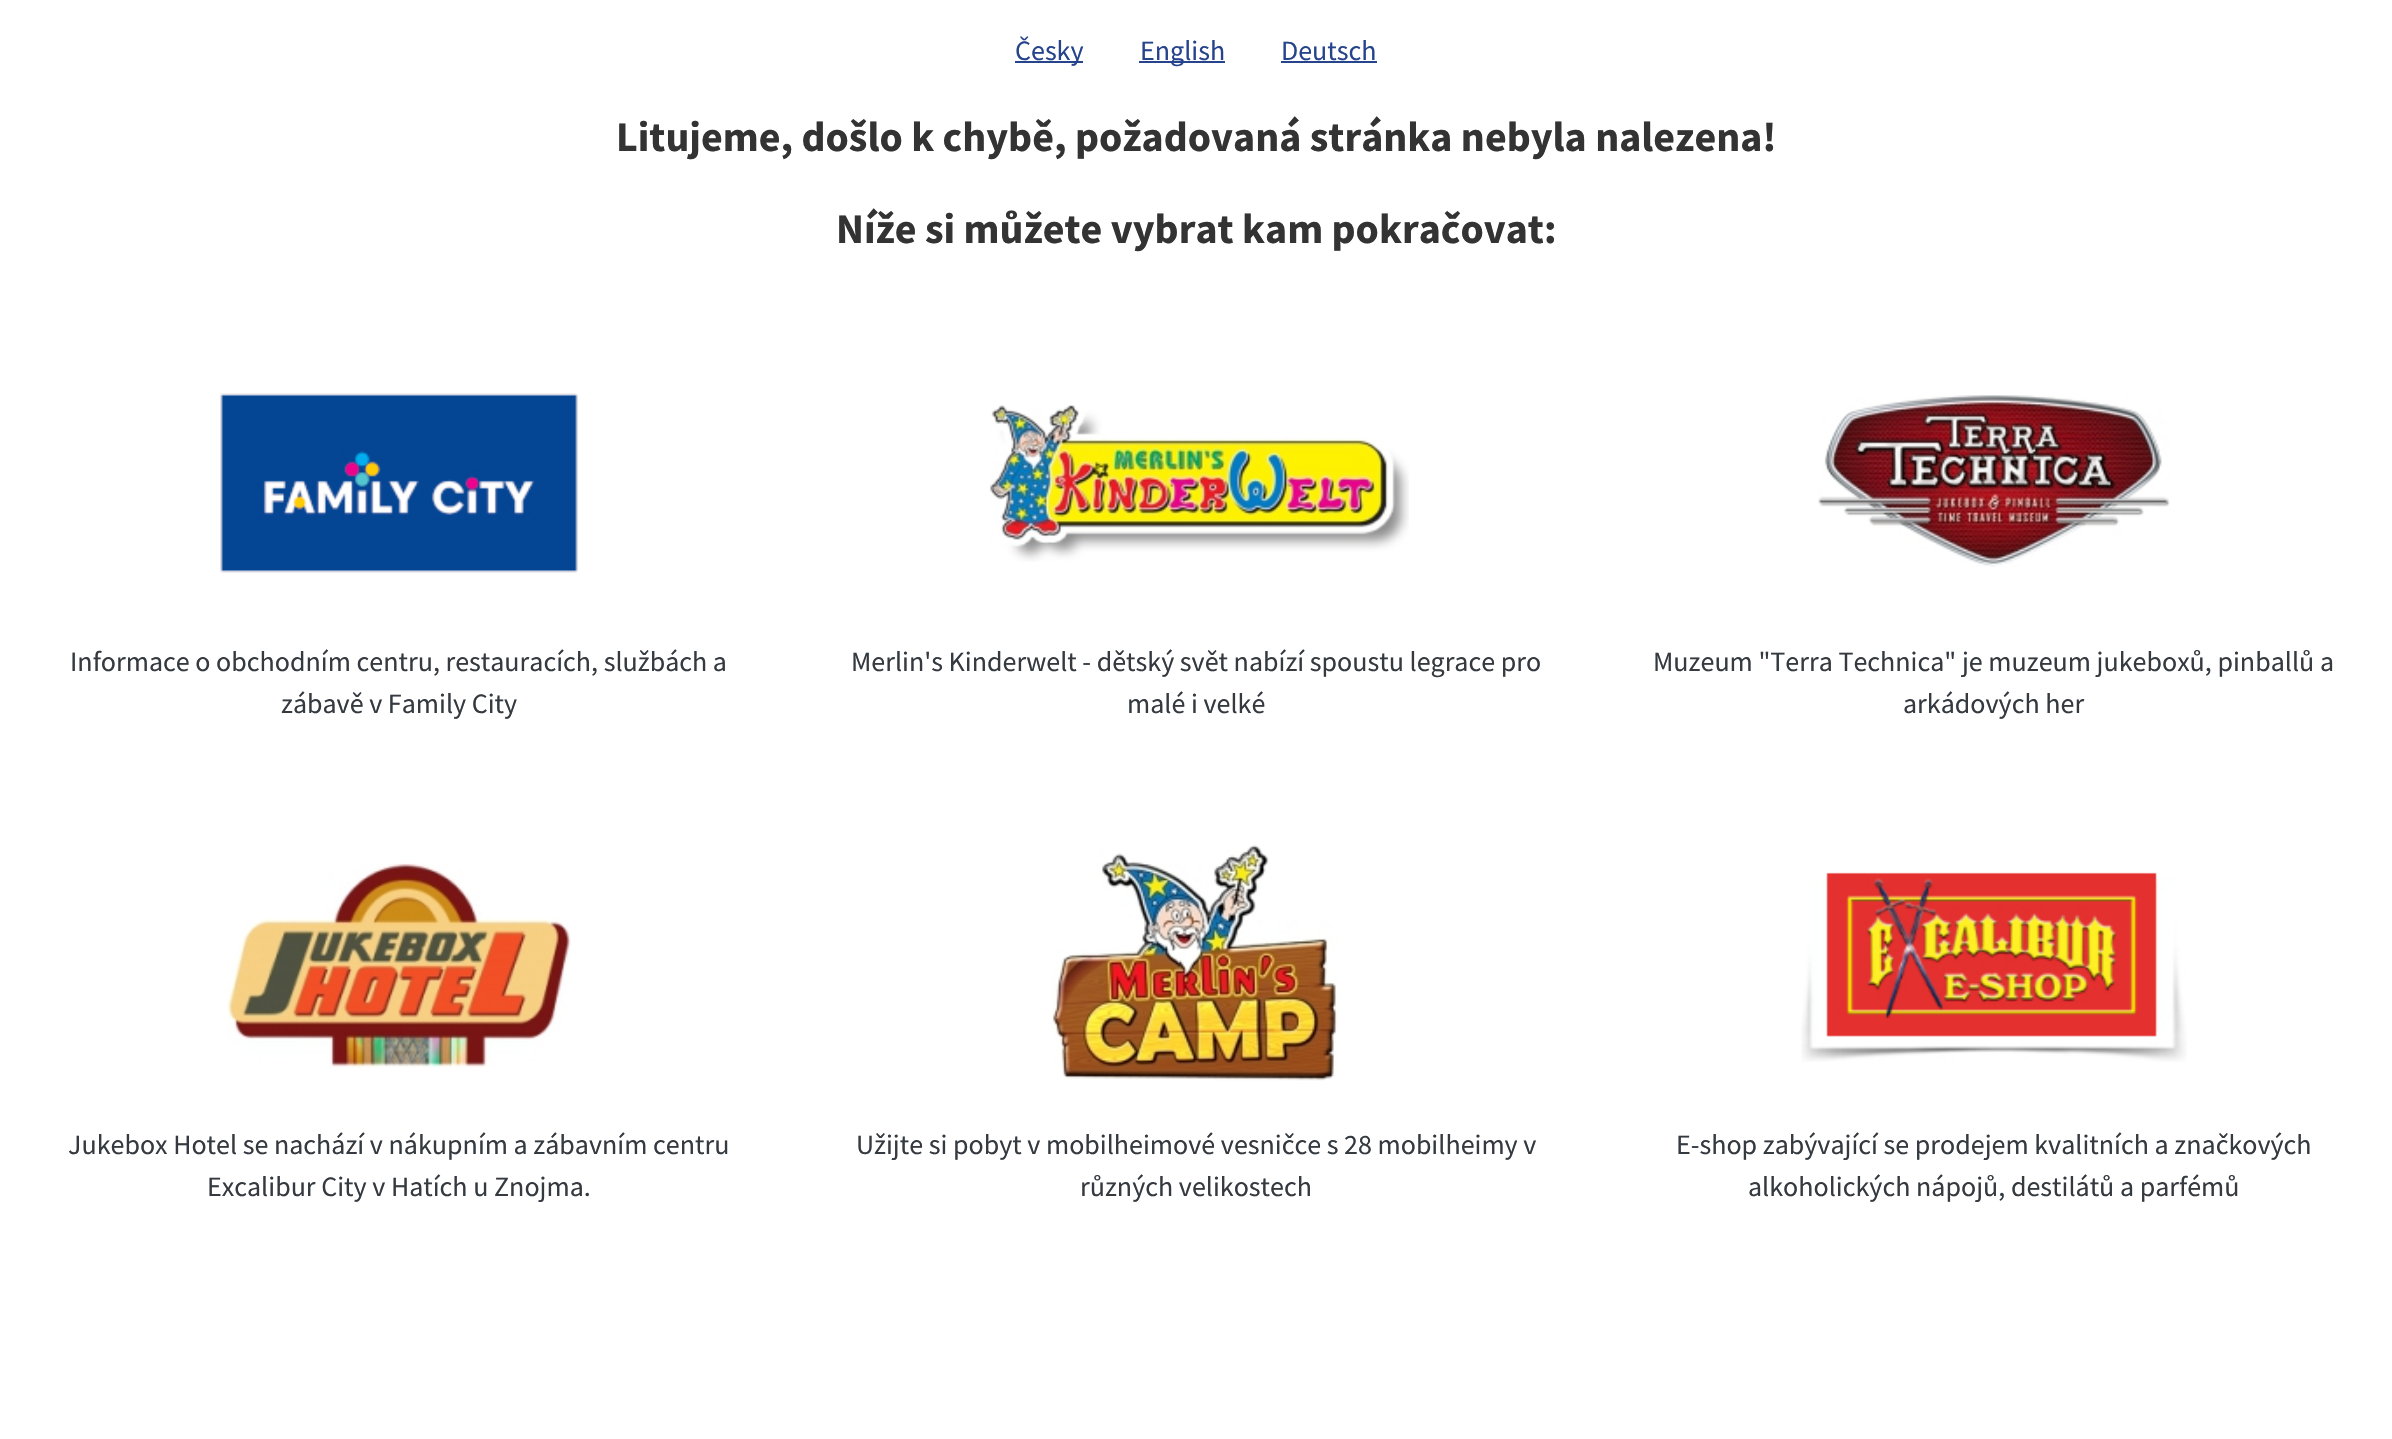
static SkFont makeFont(const char* family, int weight, float size, bool italic = false) {
  SkFontStyle style(weight, SkFontStyle::kNormal_Width,
    italic ? SkFontStyle::kItalic_Slant : SkFontStyle::kUpright_Slant);
  SkFont result(fontMgr->matchFamilyStyle(family, style), size);
  result.setSubpixel(true);
  return result;
}

static void text(SkCanvas* c, const char* s, float x, float y, const SkFont& font, SkColor color) {
  SkPaint ink(SkColor4f::FromColor(color));
  ink.setAntiAlias(true);
  c->drawString(s, x, y, font, ink);
}

static void box(SkCanvas* c, float l, float t, float r, float b, SkColor color) {
  SkPaint ink(SkColor4f::FromColor(color));
  ink.setAntiAlias(true);
  c->drawRect(SkRect::MakeLTRB(l, t, r, b), ink);
}

static void picture(SkCanvas* c, const char* path, float l, float t, float r, float b) {
  auto image = SkImages::DeferredFromEncodedData(SkData::MakeFromFileName(path));
  c->drawImageRect(image, SkRect::MakeLTRB(l, t, r, b), SkSamplingOptions());
}

void draw(SkCanvas* c) {
  SkPaint paint;
  paint.setAntiAlias(true);
  c->clear(0xffffffff);
  box(c, 1015, 61, 1083, 63, 0xff26448c);
  SkFont face1 = makeFont("Source Sans Pro", 400, 28);
  text(c, "Česky", 1015, 60, face1, 0xff26448c);
  box(c, 1139, 61, 1225, 63, 0xff26448c);
  text(c, "English", 1140, 60, face1, 0xff26448c);
  text(c, "Deutsch", 1281, 60, face1, 0xff26448c);
  box(c, 1281, 61, 1377, 63, 0xff26448c);
  SkFont face2 = makeFont("Source Sans Pro", 700, 42);
  text(c, "Litujeme, došlo k chybě, požadovaná stránka nebyla nalezena!", 616, 151, face2, 0xff333333);
  text(c, "Níže si můžete vybrat kam pokračovat:", 836, 243, face2, 0xff333333);
  picture(c, "img_01.png", 220, 393, 578, 573);
  text(c, "Informace o obchodním centru, restauracích, službách a", 70, 671, face1, 0xff343a40);
  text(c, "zábavě v Family City", 281, 713, face1, 0xff343a40);
  picture(c, "img_02.png", 989, 405, 1409, 562);
  text(c, "Merlin's Kinderwelt - dětský svět nabízí spoustu legrace pro", 851, 671, face1, 0xff343a40);
  text(c, "malé i velké", 1127, 713, face1, 0xff343a40);
  picture(c, "img_03.png", 1818, 395, 2170, 567);
  text(c, "Muzeum \"Terra Technica\" je muzeum jukeboxů, pinballů a", 1653, 671, face1, 0xff343a40);
  text(c, "arkádových her", 1903, 713, face1, 0xff343a40);
  picture(c, "img_04.png", 227, 863, 571, 1068);
  text(c, "Jukebox Hotel se nachází v nákupním a zábavním centru", 68, 1154, face1, 0xff343a40);
  text(c, "Excalibur City v Hatích u Znojma.", 207, 1196, face1, 0xff343a40);
  picture(c, "img_05.png", 1051, 845, 1338, 1081);
  text(c, "Užijte si pobyt v mobilheimové vesničce s 28 mobilheimy v", 856, 1154, face1, 0xff343a40);
  text(c, "různých velikostech", 1080, 1196, face1, 0xff343a40);
  picture(c, "img_06.png", 1801, 872, 2187, 1062);
  text(c, "E-shop zabývající se prodejem kvalitních a značkových", 1676, 1154, face1, 0xff343a40);
  text(c, "alkoholických nápojů, destilátů a parfémů", 1748, 1196, face1, 0xff343a40);
}
